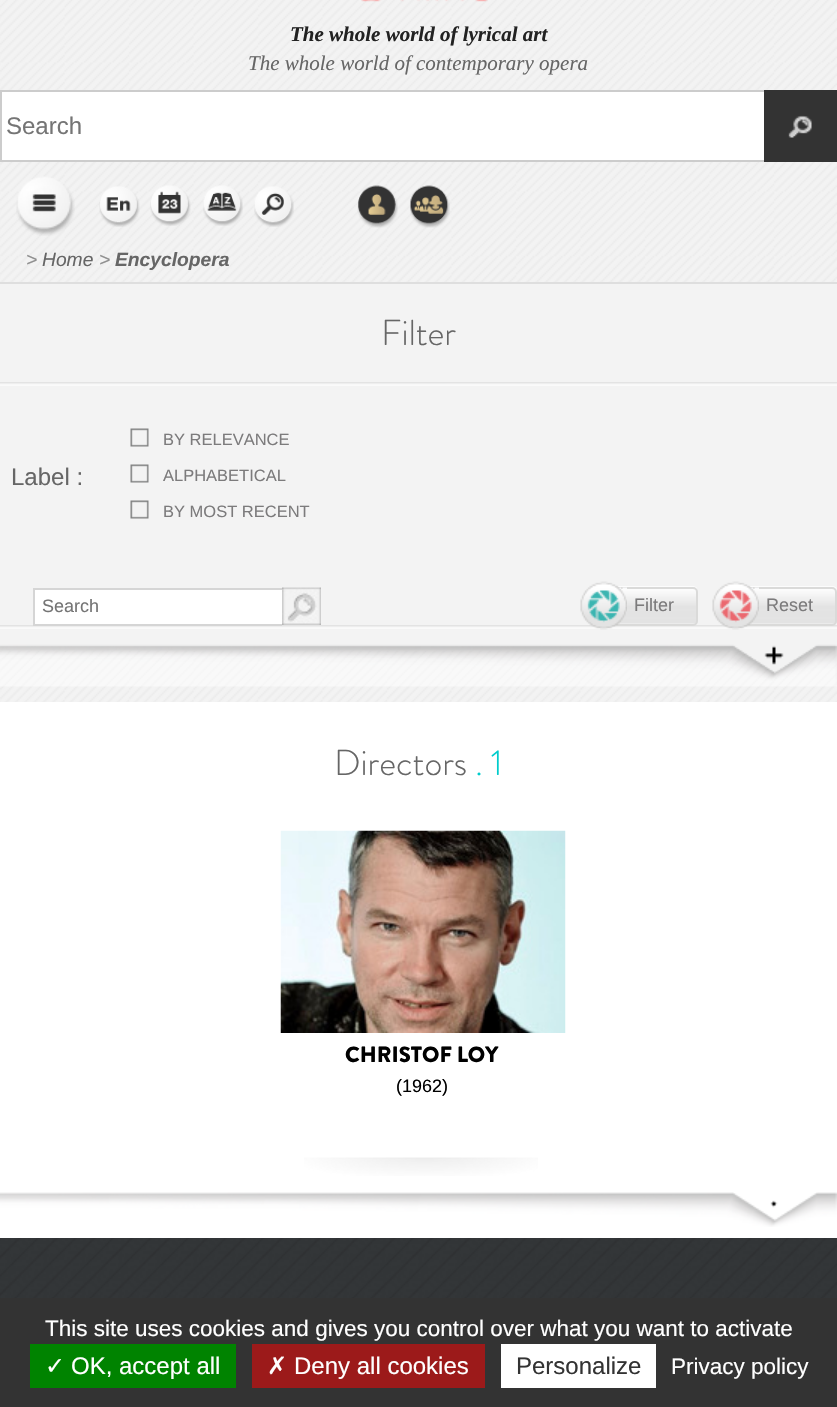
static SkFont makeFont(const char* family, int weight, float size, bool italic = false) {
  SkFontStyle style(weight, SkFontStyle::kNormal_Width,
    italic ? SkFontStyle::kItalic_Slant : SkFontStyle::kUpright_Slant);
  SkFont result(fontMgr->matchFamilyStyle(family, style), size);
  result.setSubpixel(true);
  return result;
}

static void text(SkCanvas* c, const char* s, float x, float y, const SkFont& font, SkColor color) {
  SkPaint ink(SkColor4f::FromColor(color));
  ink.setAntiAlias(true);
  c->drawString(s, x, y, font, ink);
}

static void box(SkCanvas* c, float l, float t, float r, float b, SkColor color) {
  SkPaint ink(SkColor4f::FromColor(color));
  ink.setAntiAlias(true);
  c->drawRect(SkRect::MakeLTRB(l, t, r, b), ink);
}

static void picture(SkCanvas* c, const char* path, float l, float t, float r, float b) {
  auto image = SkImages::DeferredFromEncodedData(SkData::MakeFromFileName(path));
  c->drawImageRect(image, SkRect::MakeLTRB(l, t, r, b), SkSamplingOptions());
}

void draw(SkCanvas* c) {
  SkPaint paint;
  paint.setAntiAlias(true);
  c->clear(0xffffffff);
  picture(c, "img_01.png", 0, 0, 837, 702);
  picture(c, "img_02.png", 361, 0, 488, 2);
  SkFont face1 = makeFont("Liberation Serif", 700, 21, true);
  text(c, "The whole world of lyrical art", 290, 41, face1, 0xff222222);
  SkFont face2 = makeFont("Liberation Serif", 400, 21, true);
  text(c, "The whole world of contemporary opera", 248, 70, face2, 0xff666666);
  box(c, 2, 92, 764, 160, 0xffffffff);
  paint.setStyle(SkPaint::kStroke_Style);
  paint.setStrokeWidth(2);
  paint.setColor(0xffcccccc);
  c->drawRect(SkRect::MakeLTRB(1, 91, 836, 161), paint);
  SkFont face3 = makeFont("Liberation Sans", 400, 24);
  text(c, "Search", 6, 134, face3, 0xff757575);
  box(c, 764, 90, 837, 162, 0xff333333);
  picture(c, "img_03.png", 788, 115, 812, 138);
  picture(c, "img_04.png", 16, 176, 75, 236);
  picture(c, "img_05.png", 99, 186, 140, 227);
  picture(c, "img_06.png", 150, 185, 191, 226);
  picture(c, "img_07.png", 203, 185, 243, 226);
  picture(c, "img_08.png", 254, 186, 294, 227);
  picture(c, "img_09.png", 357, 185, 398, 228);
  picture(c, "img_10.png", 410, 185, 450, 228);
  box(c, 0, 282, 837, 284, 0xffdedede);
  SkFont face4 = makeFont("Liberation Sans", 400, 19.25f, true);
  text(c, ">", 26, 266, face4, 0xff909090);
  text(c, "Home", 42, 266, face4, 0xff666666);
  text(c, ">", 99, 266, face4, 0xff909090);
  SkFont face5 = makeFont("Liberation Sans", 700, 19.25f, true);
  text(c, "Encyclopera", 115, 266, face5, 0xff666666);
  box(c, 0, 284, 837, 630, 0xfff3f3f3);
  SkFont face6 = makeFont("Brandon Grotesque", 300, 36);
  text(c, "Filter", 381, 345, face6, 0xff666666);
  picture(c, "img_11.png", 0, 382, 837, 386);
  text(c, "Label :", 11, 485, face3, 0xff666666);
  picture(c, "img_12.png", 130, 428, 149, 447);
  SkFont face7 = makeFont("Liberation Sans", 400, 16.5f);
  text(c, "BY RELEVANCE", 163, 445, face7, 0xff7c7b7c);
  picture(c, "img_12.png", 130, 464, 149, 483);
  text(c, "ALPHABETICAL", 163, 481, face7, 0xff7c7b7c);
  picture(c, "img_12.png", 130, 500, 149, 519);
  text(c, "BY MOST RECENT", 163, 517, face7, 0xff7c7b7c);
  box(c, 35, 590, 282, 624, 0xffffffff);
  box(c, 33, 588, 282, 590, 0xffd5d5d5);
  picture(c, "img_18.png", 0, 625, 837, 629);
  box(c, 33, 624, 282, 626, 0xffd5d5d5);
  box(c, 33, 588, 35, 626, 0xffd5d5d5);
  SkFont face8 = makeFont("Liberation Sans", 400, 18);
  text(c, "Search", 42, 612, face8, 0xff757575);
  picture(c, "img_13.png", 282, 587, 321, 625);
  picture(c, "img_14.png", 612, 586, 698, 624);
  paint.setColor(0xffdadad9);
  c->drawRoundRect(SkRect::MakeLTRB(612, 588, 697, 625), 4, 4, paint);
  picture(c, "img_15.png", 580, 581, 627, 630);
  text(c, "Filter", 634, 611, face8, 0xff7c7b7c);
  picture(c, "img_16.png", 744, 586, 837, 624);
  c->drawRoundRect(SkRect::MakeLTRB(744, 588, 836, 625), 4, 4, paint);
  picture(c, "img_17.png", 712, 581, 759, 630);
  text(c, "Reset", 766, 611, face8, 0xff7c7b7c);
  picture(c, "img_19.png", 0, 630, 837, 687);
  picture(c, "img_20.png", 764, 645, 784, 665);
  text(c, "Directors", 334, 775, face6, 0xff666666);
  text(c, ". 1", 475, 775, face6, 0xff00cccc);
  picture(c, "img_21.png", 304, 1157, 538, 1176);
  picture(c, "img_22.png", 280, 830, 566, 1033);
  SkFont face9 = makeFont("Brandon Grotesque", 900, 22);
  text(c, "CHRISTOF LOY", 345, 1062, face9, 0xff000000);
  text(c, "(1962)", 396, 1092, face8, 0xff000000);
  picture(c, "img_23.png", 0, 1192, 837, 1227);
  picture(c, "img_24.png", 770, 1200, 778, 1208);
  picture(c, "img_25.png", 0, 1238, 837, 1298);
  box(c, 0, 1298, 837, 1407, 0xff333333);
  SkFont face10 = makeFont("Liberation Sans", 400, 22.5f);
  text(c, "This site uses cookies and gives you control over what you want to activate", 45, 1336, face10, 0xffffffff);
  box(c, 30, 1344, 236, 1388, 0xff008300);
  SkFont face11 = makeFont("DejaVu Sans", 400, 24);
  text(c, "✓", 45, 1374, face11, 0xffffffff);
  text(c, "OK, accept all", 71, 1374, face3, 0xffffffff);
  box(c, 252, 1344, 485, 1388, 0xff9c1a1a);
  text(c, "✗", 267, 1374, face11, 0xffffffff);
  text(c, "Deny all cookies", 294, 1374, face3, 0xffffffff);
  box(c, 501, 1344, 656, 1388, 0xffffffff);
  text(c, "Personalize", 516, 1374, face3, 0xff333333);
  text(c, "Privacy policy", 671, 1374, face10, 0xffffffff);
}
